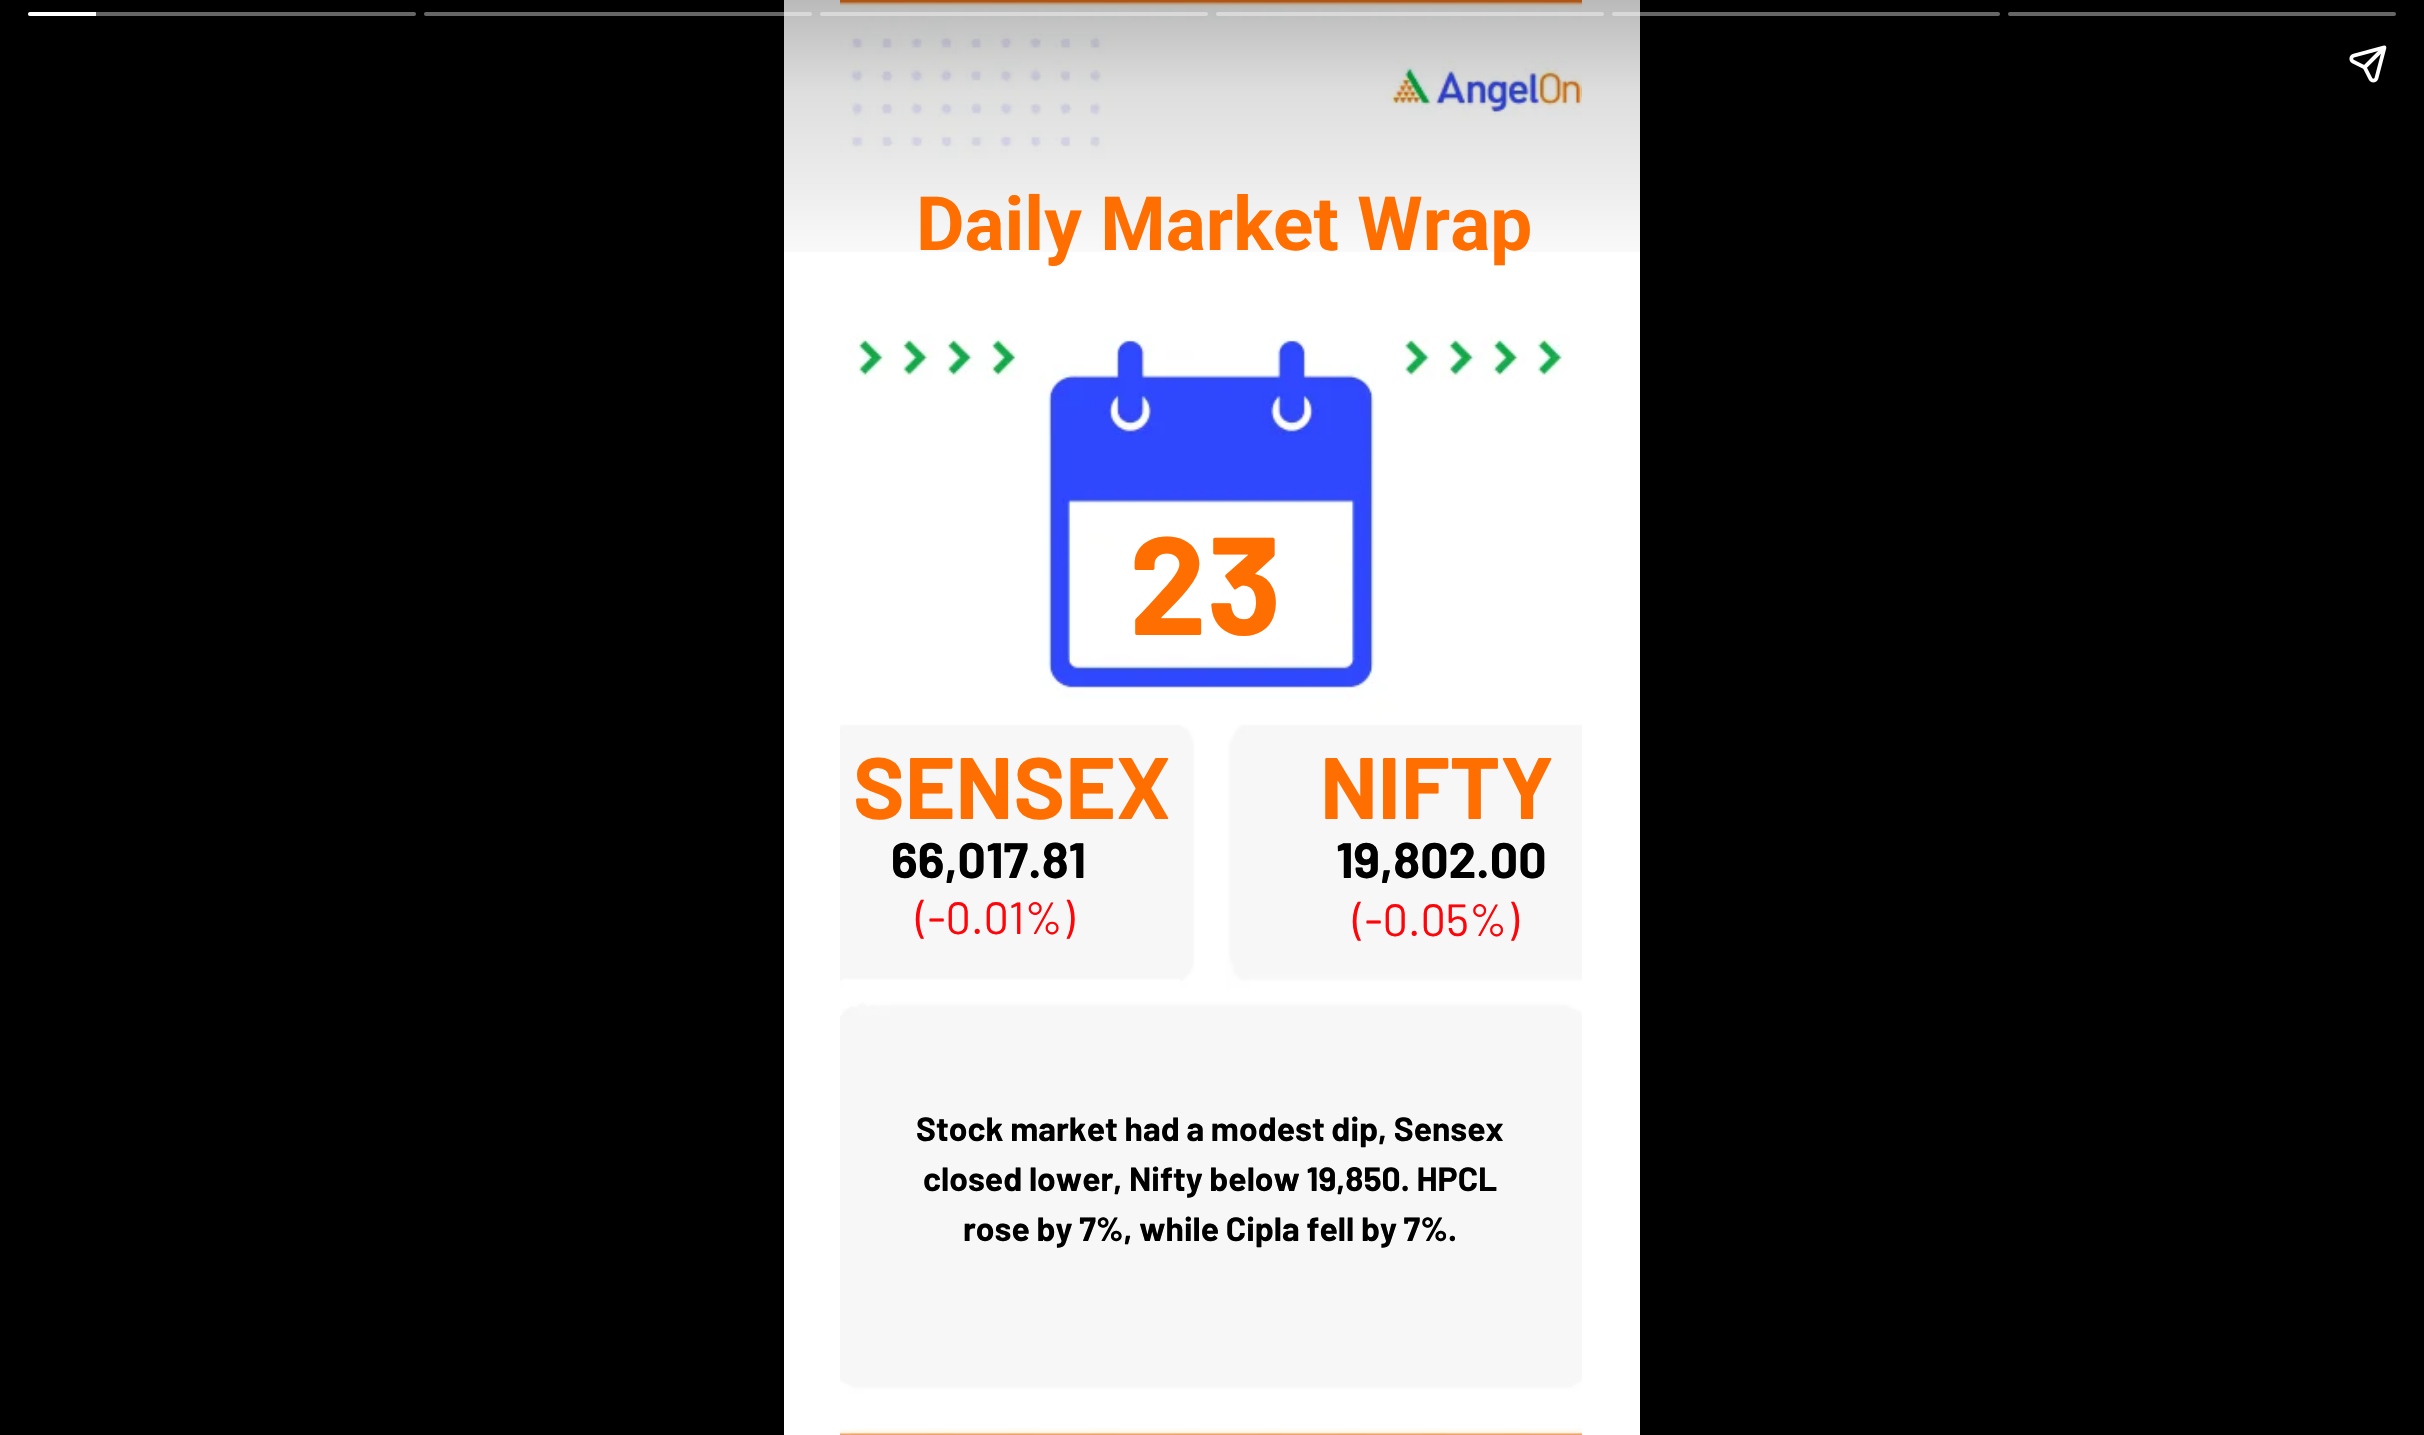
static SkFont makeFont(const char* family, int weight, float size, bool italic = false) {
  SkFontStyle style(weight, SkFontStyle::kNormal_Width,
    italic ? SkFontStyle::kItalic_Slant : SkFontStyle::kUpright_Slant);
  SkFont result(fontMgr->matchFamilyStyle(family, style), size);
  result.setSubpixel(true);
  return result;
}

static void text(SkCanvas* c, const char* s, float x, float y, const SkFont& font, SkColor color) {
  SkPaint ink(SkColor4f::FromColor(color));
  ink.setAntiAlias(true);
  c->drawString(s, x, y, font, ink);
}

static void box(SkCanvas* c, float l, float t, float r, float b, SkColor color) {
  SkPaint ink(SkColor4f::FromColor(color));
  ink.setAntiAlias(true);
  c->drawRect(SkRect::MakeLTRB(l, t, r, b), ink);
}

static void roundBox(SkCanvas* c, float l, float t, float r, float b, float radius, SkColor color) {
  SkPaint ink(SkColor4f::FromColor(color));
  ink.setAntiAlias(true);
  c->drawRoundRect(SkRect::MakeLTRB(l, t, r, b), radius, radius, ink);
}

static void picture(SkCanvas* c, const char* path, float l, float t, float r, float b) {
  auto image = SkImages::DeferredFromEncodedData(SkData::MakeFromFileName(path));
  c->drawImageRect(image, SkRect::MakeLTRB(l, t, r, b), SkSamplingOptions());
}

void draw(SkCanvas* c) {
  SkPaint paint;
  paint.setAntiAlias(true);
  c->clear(0xff000000);
  box(c, 784, 0, 1640, 1435, 0xffffffff);
  picture(c, "img_02.png", 840, 0, 1582, 1394);
  {
    const SkColor colors[] = {0x45000000, 0x21000000, 0x12000000, 0x00000000};
    const float stops[] = {0, 0.33f, 0.67f, 1};
    const SkPoint ends[] = {{1212, 0}, {1212, 280}};
    paint.setShader(SkGradientShader::MakeLinear(ends, colors, stops, 4, SkTileMode::kClamp));
    paint.setAlpha(255);
  }
  c->drawRect(SkRect::MakeLTRB(784, 0, 1640, 252), paint);
  roundBox(c, 28, 12, 416, 16, 2, 0xff666666);
  paint.setShader(nullptr);
  paint.setColor(0xffffffff);
  c->drawPath(SkPathBuilder().moveTo(30, 12).lineTo(96, 12).lineTo(96, 16).lineTo(30, 16).cubicTo(29, 16, 28, 15, 28, 14).cubicTo(28, 13, 29, 12, 30, 12).close().detach(), paint);
  roundBox(c, 424, 12, 812, 16, 2, 0x66ffffff);
  roundBox(c, 820, 12, 1208, 16, 2, 0xffd9d9d9);
  roundBox(c, 1216, 12, 1604, 16, 2, 0xffd9d9d9);
  roundBox(c, 1612, 12, 2000, 16, 2, 0x66ffffff);
  roundBox(c, 2008, 12, 2396, 16, 2, 0xff666666);
  picture(c, "img_01.png", 2349, 45, 2387, 83);
  SkFont face1 = makeFont("Roboto", 700, 74.75f);
  text(c, "Daily Market Wrap", 916, 250, face1, 0xffff6e00);
  SkFont face2 = makeFont("Barlow", 700, 139);
  text(c, "23", 1129, 635, face2, 0xffff6e00);
  SkFont face3 = makeFont("Barlow", 700, 87);
  text(c, "SENSEX", 853, 819, face3, 0xffff6e00);
  text(c, "NIFTY", 1320, 819, face3, 0xffff6e00);
  SkFont face4 = makeFont("Barlow", 700, 49.75f);
  text(c, "66,017.81", 891, 878, face4, 0xff000000);
  text(c, "19,802.00", 1336, 878, face4, 0xff000000);
  SkFont face5 = makeFont("Barlow", 400, 45);
  text(c, "(-0.01%)", 916, 934, face5, 0xffff0509);
  text(c, "(-0.05%)", 1353, 936, face5, 0xffff0509);
  SkFont face6 = makeFont("Barlow", 700, 33.6f);
  text(c, "Stock market had a modest dip, Sensex", 916, 1141, face6, 0xff000000);
  text(c, "closed lower, Nifty below 19,850. HPCL", 923, 1191, face6, 0xff000000);
  text(c, "rose by 7%, while Cipla fell by 7%.", 963, 1241, face6, 0xff000000);
  picture(c, "img_03.png", 840, 1428, 1582, 1435);
}
